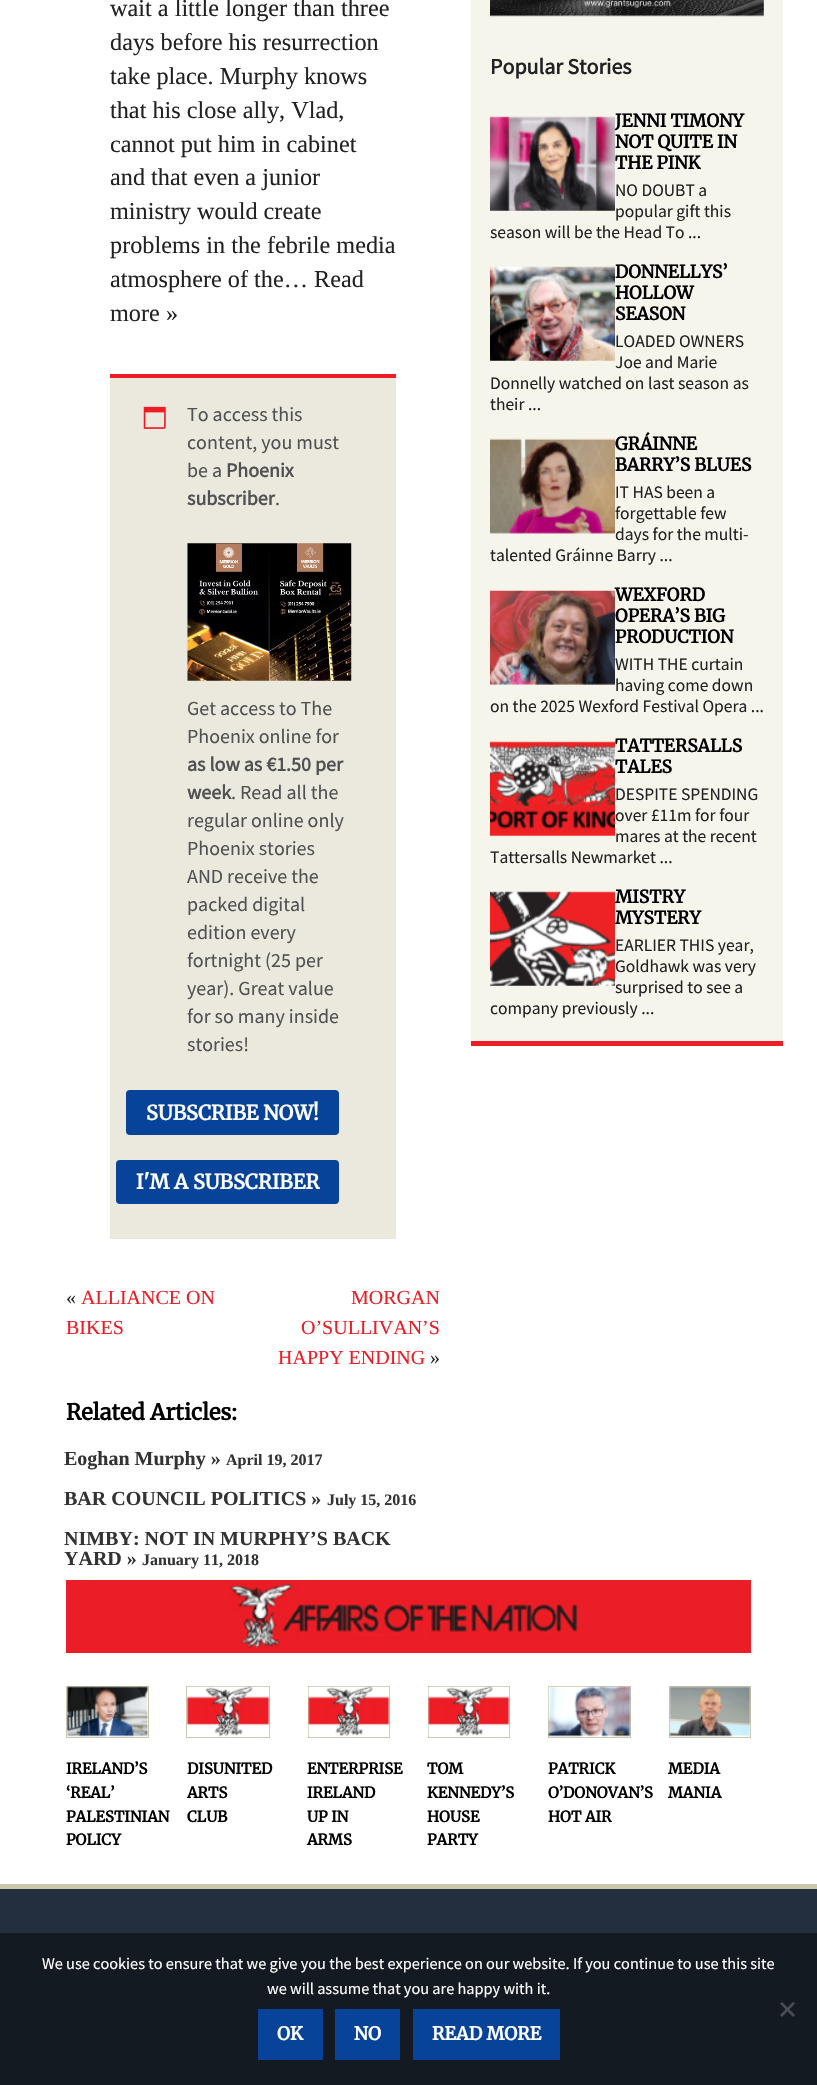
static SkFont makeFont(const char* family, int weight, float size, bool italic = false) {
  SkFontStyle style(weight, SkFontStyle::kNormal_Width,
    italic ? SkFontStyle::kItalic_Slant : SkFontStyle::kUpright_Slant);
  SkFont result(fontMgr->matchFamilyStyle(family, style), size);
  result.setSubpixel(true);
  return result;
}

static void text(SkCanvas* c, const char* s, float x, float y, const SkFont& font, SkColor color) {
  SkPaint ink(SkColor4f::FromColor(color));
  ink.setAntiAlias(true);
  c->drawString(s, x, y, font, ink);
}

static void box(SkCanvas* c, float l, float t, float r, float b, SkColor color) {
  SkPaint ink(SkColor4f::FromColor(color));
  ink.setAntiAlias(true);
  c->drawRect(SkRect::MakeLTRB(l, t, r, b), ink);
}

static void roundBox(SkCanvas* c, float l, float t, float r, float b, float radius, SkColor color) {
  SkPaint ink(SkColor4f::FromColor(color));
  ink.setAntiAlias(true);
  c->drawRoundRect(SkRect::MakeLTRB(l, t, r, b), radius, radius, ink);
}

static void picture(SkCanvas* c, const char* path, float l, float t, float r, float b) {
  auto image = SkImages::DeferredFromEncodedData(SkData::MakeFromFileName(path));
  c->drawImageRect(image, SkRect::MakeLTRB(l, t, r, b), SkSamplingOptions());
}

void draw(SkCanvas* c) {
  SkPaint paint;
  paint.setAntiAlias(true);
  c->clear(0xff232f3e);
  box(c, 0, 0, 817, 1884, 0xffffffff);
  SkFont face1 = makeFont("Liberation Serif", 400, 24.25f);
  text(c, "wait a little longer than three", 110, 16, face1, 0xff222222);
  text(c, "days before his resurrection", 110, 50, face1, 0xff222222);
  text(c, "take place. Murphy knows", 110, 84, face1, 0xff222222);
  text(c, "that his close ally, Vlad,", 110, 118, face1, 0xff222222);
  text(c, "cannot put him in cabinet", 110, 152, face1, 0xff222222);
  text(c, "and that even a junior", 110, 185, face1, 0xff222222);
  text(c, "ministry would create", 110, 219, face1, 0xff222222);
  text(c, "problems in the febrile media", 110, 253, face1, 0xff222222);
  text(c, "atmosphere of the… Read", 110, 287, face1, 0xff222222);
  text(c, "more »", 110, 321, face1, 0xff222222);
  box(c, 110, 378, 396, 1239, 0xffebe9de);
  box(c, 110, 374, 396, 378, 0xffec1d25);
  picture(c, "img_01.png", 143, 406, 166, 429);
  SkFont face2 = makeFont("Source Sans Pro", 400, 20);
  text(c, "To access this", 187, 421, face2, 0xff515151);
  text(c, "content, you must", 187, 449, face2, 0xff515151);
  text(c, "be a", 187, 477, face2, 0xff515151);
  SkFont face3 = makeFont("Source Sans Pro", 700, 20);
  text(c, "Phoenix", 226, 477, face3, 0xff515151);
  text(c, "subscriber", 187, 505, face3, 0xff515151);
  text(c, ".", 275, 505, face2, 0xff515151);
  picture(c, "img_02.png", 187, 543, 352, 681);
  text(c, "Get access to The", 187, 715, face2, 0xff515151);
  text(c, "Phoenix online for", 187, 743, face2, 0xff515151);
  text(c, "as low as €1.50 per", 187, 771, face3, 0xff515151);
  text(c, "week", 187, 799, face3, 0xff515151);
  text(c, ". Read all the", 231, 799, face2, 0xff515151);
  text(c, "regular online only", 187, 827, face2, 0xff515151);
  text(c, "Phoenix stories", 187, 855, face2, 0xff515151);
  text(c, "AND receive the", 187, 883, face2, 0xff515151);
  text(c, "packed digital", 187, 911, face2, 0xff515151);
  text(c, "edition every", 187, 939, face2, 0xff515151);
  text(c, "fortnight (25 per", 187, 967, face2, 0xff515151);
  text(c, "year). Great value", 187, 995, face2, 0xff515151);
  text(c, "for so many inside", 187, 1023, face2, 0xff515151);
  text(c, "stories!", 187, 1051, face2, 0xff515151);
  roundBox(c, 126, 1090, 339, 1135, 4, 0xff074399);
  SkFont face4 = makeFont("Merriweather", 700, 20);
  text(c, "SUBSCRIBE NOW!", 146, 1120, face4, 0xffffffff);
  roundBox(c, 116, 1160, 339, 1204, 4, 0xff074399);
  text(c, "I'M A SUBSCRIBER", 136, 1189, face4, 0xffffffff);
  SkFont face5 = makeFont("Liberation Serif", 400, 20);
  text(c, "«", 66, 1304, face5, 0xff222222);
  text(c, "ALLIANCE ON", 81, 1304, face5, 0xffec1d25);
  text(c, "BIKES", 66, 1334, face5, 0xffec1d25);
  text(c, "MORGAN", 351, 1304, face5, 0xffec1d25);
  text(c, "O’SULLIVAN’S", 301, 1334, face5, 0xffec1d25);
  text(c, "HAPPY ENDING", 278, 1364, face5, 0xffec1d25);
  text(c, "»", 430, 1364, face5, 0xff222222);
  SkFont face6 = makeFont("Merriweather", 700, 22);
  text(c, "Related Articles:", 66, 1420, face6, 0xff000000);
  SkFont face7 = makeFont("Liberation Serif", 700, 20);
  text(c, "Eoghan Murphy »", 64, 1465, face7, 0xff333333);
  SkFont face8 = makeFont("Liberation Serif", 700, 16);
  text(c, "April 19, 2017", 226, 1465, face8, 0xff333333);
  text(c, "BAR COUNCIL POLITICS »", 64, 1505, face7, 0xff333333);
  text(c, "July 15, 2016", 327, 1505, face8, 0xff333333);
  text(c, "NIMBY: NOT IN MURPHY’S BACK", 64, 1545, face7, 0xff333333);
  text(c, "YARD »", 64, 1565, face7, 0xff333333);
  text(c, "January 11, 2018", 142, 1565, face8, 0xff333333);
  box(c, 471, 0, 783, 1041, 0xfff6f5eb);
  box(c, 471, 1041, 783, 1046, 0xffec1d25);
  picture(c, "img_03.png", 490, 0, 764, 17);
  SkFont face9 = makeFont("Source Sans Pro", 700, 22);
  text(c, "Popular Stories", 490, 74, face9, 0xff222222);
  picture(c, "img_04.png", 490, 116, 615, 211);
  SkFont face10 = makeFont("Merriweather", 700, 17.5f);
  text(c, "JENNI TIMONY", 615, 127, face10, 0xff000000);
  text(c, "NOT QUITE IN", 615, 148, face10, 0xff000000);
  text(c, "THE PINK", 615, 169, face10, 0xff000000);
  SkFont face11 = makeFont("Source Sans Pro", 400, 17.5f);
  text(c, "NO DOUBT a", 615, 196, face11, 0xff222222);
  text(c, "popular gift this", 615, 217, face11, 0xff222222);
  text(c, "season will be the Head To ...", 490, 238, face11, 0xff222222);
  picture(c, "img_05.png", 490, 266, 615, 361);
  text(c, "DONNELLYS’", 615, 278, face10, 0xff000000);
  text(c, "HOLLOW", 615, 299, face10, 0xff000000);
  text(c, "SEASON", 615, 320, face10, 0xff000000);
  text(c, "LOADED OWNERS", 615, 347, face11, 0xff222222);
  text(c, "Joe and Marie", 615, 368, face11, 0xff222222);
  text(c, "Donnelly watched on last season as", 490, 389, face11, 0xff222222);
  text(c, "their ...", 490, 410, face11, 0xff222222);
  picture(c, "img_06.png", 490, 438, 615, 534);
  text(c, "GRÁINNE", 615, 450, face10, 0xff000000);
  text(c, "BARRY’S BLUES", 615, 471, face10, 0xff000000);
  text(c, "IT HAS been a", 615, 498, face11, 0xff222222);
  text(c, "forgettable few", 615, 519, face11, 0xff222222);
  text(c, "days for the multi-", 615, 540, face11, 0xff222222);
  text(c, "talented Gráinne Barry ...", 490, 561, face11, 0xff222222);
  picture(c, "img_07.png", 490, 590, 615, 685);
  text(c, "WEXFORD", 615, 601, face10, 0xff000000);
  text(c, "OPERA’S BIG", 615, 622, face10, 0xff000000);
  text(c, "PRODUCTION", 615, 643, face10, 0xff000000);
  text(c, "WITH THE curtain", 615, 670, face11, 0xff222222);
  text(c, "having come down", 615, 691, face11, 0xff222222);
  text(c, "on the 2025 Wexford Festival Opera ...", 490, 712, face11, 0xff222222);
  picture(c, "img_08.png", 490, 741, 615, 836);
  text(c, "TATTERSALLS", 615, 752, face10, 0xff000000);
  text(c, "TALES", 615, 773, face10, 0xff000000);
  text(c, "DESPITE SPENDING", 615, 800, face11, 0xff222222);
  text(c, "over £11m for four", 615, 821, face11, 0xff222222);
  text(c, "mares at the recent", 615, 842, face11, 0xff222222);
  text(c, "Tattersalls Newmarket ...", 490, 863, face11, 0xff222222);
  picture(c, "img_09.png", 490, 891, 615, 986);
  text(c, "MISTRY", 615, 903, face10, 0xff000000);
  text(c, "MYSTERY", 615, 924, face10, 0xff000000);
  text(c, "EARLIER THIS year,", 615, 951, face11, 0xff222222);
  text(c, "Goldhawk was very", 615, 972, face11, 0xff222222);
  text(c, "surprised to see a", 615, 993, face11, 0xff222222);
  text(c, "company previously ...", 490, 1014, face11, 0xff222222);
  box(c, 66, 1580, 751, 1653, 0xffeb1d27);
  picture(c, "img_10.png", 229, 1582, 580, 1649);
  paint.setStyle(SkPaint::kStroke_Style);
  paint.setStrokeWidth(1);
  paint.setColor(0xffcbc7ac);
  c->drawRect(SkRect::MakeLTRB(66.5f, 1686.5f, 148.5f, 1737.5f), paint);
  picture(c, "img_11.png", 67, 1686, 149, 1737);
  SkFont face12 = makeFont("Merriweather", 700, 15);
  text(c, "IRELAND’S", 66, 1774, face12, 0xff000000);
  text(c, "‘REAL’", 66, 1798, face12, 0xff000000);
  text(c, "PALESTINIAN", 66, 1822, face12, 0xff000000);
  text(c, "POLICY", 66, 1845, face12, 0xff000000);
  c->drawRect(SkRect::MakeLTRB(186.5f, 1686.5f, 269.5f, 1737.5f), paint);
  picture(c, "img_12.png", 187, 1686, 270, 1737);
  text(c, "DISUNITED", 187, 1774, face12, 0xff000000);
  text(c, "ARTS", 187, 1798, face12, 0xff000000);
  text(c, "CLUB", 187, 1822, face12, 0xff000000);
  c->drawRect(SkRect::MakeLTRB(308.5f, 1686.5f, 389.5f, 1737.5f), paint);
  picture(c, "img_13.png", 308, 1686, 390, 1737);
  text(c, "ENTERPRISE", 307, 1774, face12, 0xff000000);
  text(c, "IRELAND", 307, 1798, face12, 0xff000000);
  text(c, "UP IN", 307, 1822, face12, 0xff000000);
  text(c, "ARMS", 307, 1845, face12, 0xff000000);
  c->drawRect(SkRect::MakeLTRB(428.5f, 1686.5f, 509.5f, 1737.5f), paint);
  picture(c, "img_13.png", 428, 1686, 510, 1737);
  text(c, "TOM", 427, 1774, face12, 0xff000000);
  text(c, "KENNEDY’S", 427, 1798, face12, 0xff000000);
  text(c, "HOUSE", 427, 1822, face12, 0xff000000);
  text(c, "PARTY", 427, 1845, face12, 0xff000000);
  c->drawRect(SkRect::MakeLTRB(548.5f, 1686.5f, 630.5f, 1737.5f), paint);
  picture(c, "img_14.png", 548, 1686, 631, 1737);
  text(c, "PATRICK", 548, 1774, face12, 0xff000000);
  text(c, "O’DONOVAN’S", 548, 1798, face12, 0xff000000);
  text(c, "HOT AIR", 548, 1822, face12, 0xff000000);
  c->drawRect(SkRect::MakeLTRB(669.5f, 1686.5f, 750.5f, 1737.5f), paint);
  picture(c, "img_15.png", 669, 1686, 751, 1737);
  text(c, "MEDIA", 668, 1774, face12, 0xff000000);
  text(c, "MANIA", 668, 1798, face12, 0xff000000);
  box(c, 0, 1884, 817, 1889, 0xffcbc7ac);
  box(c, 0, 1933, 817, 2085, 0xff131a22);
  SkFont face13 = makeFont("Source Sans Pro", 400, 16.25f);
  text(c, "We use cookies to ensure that we give you the best experience on our website. If you continue to use this site", 42, 1969, face13, 0xffffffff);
  text(c, "we will assume that you are happy with it.", 267, 1994, face13, 0xffffffff);
  paint.setStyle(SkPaint::kFill_Style);
  paint.setColor(0xff4a4d51);
  c->drawPath(SkPathBuilder().moveTo(793, 2002).lineTo(795, 2003.5f).lineTo(782, 2017).lineTo(780, 2015).close().detach(), paint);
  c->drawPath(SkPathBuilder().moveTo(780, 2003.5f).lineTo(782, 2002).lineTo(795, 2015).lineTo(793, 2017).close().detach(), paint);
  box(c, 258, 2009, 323, 2060, 0xff074399);
  SkFont face14 = makeFont("Merriweather", 700, 18);
  text(c, "OK", 277, 2040, face14, 0xffffffff);
  box(c, 335, 2009, 400, 2060, 0xff074399);
  text(c, "NO", 354, 2040, face14, 0xffffffff);
  box(c, 413, 2009, 560, 2060, 0xff074399);
  text(c, "READ MORE", 432, 2040, face14, 0xffffffff);
}
